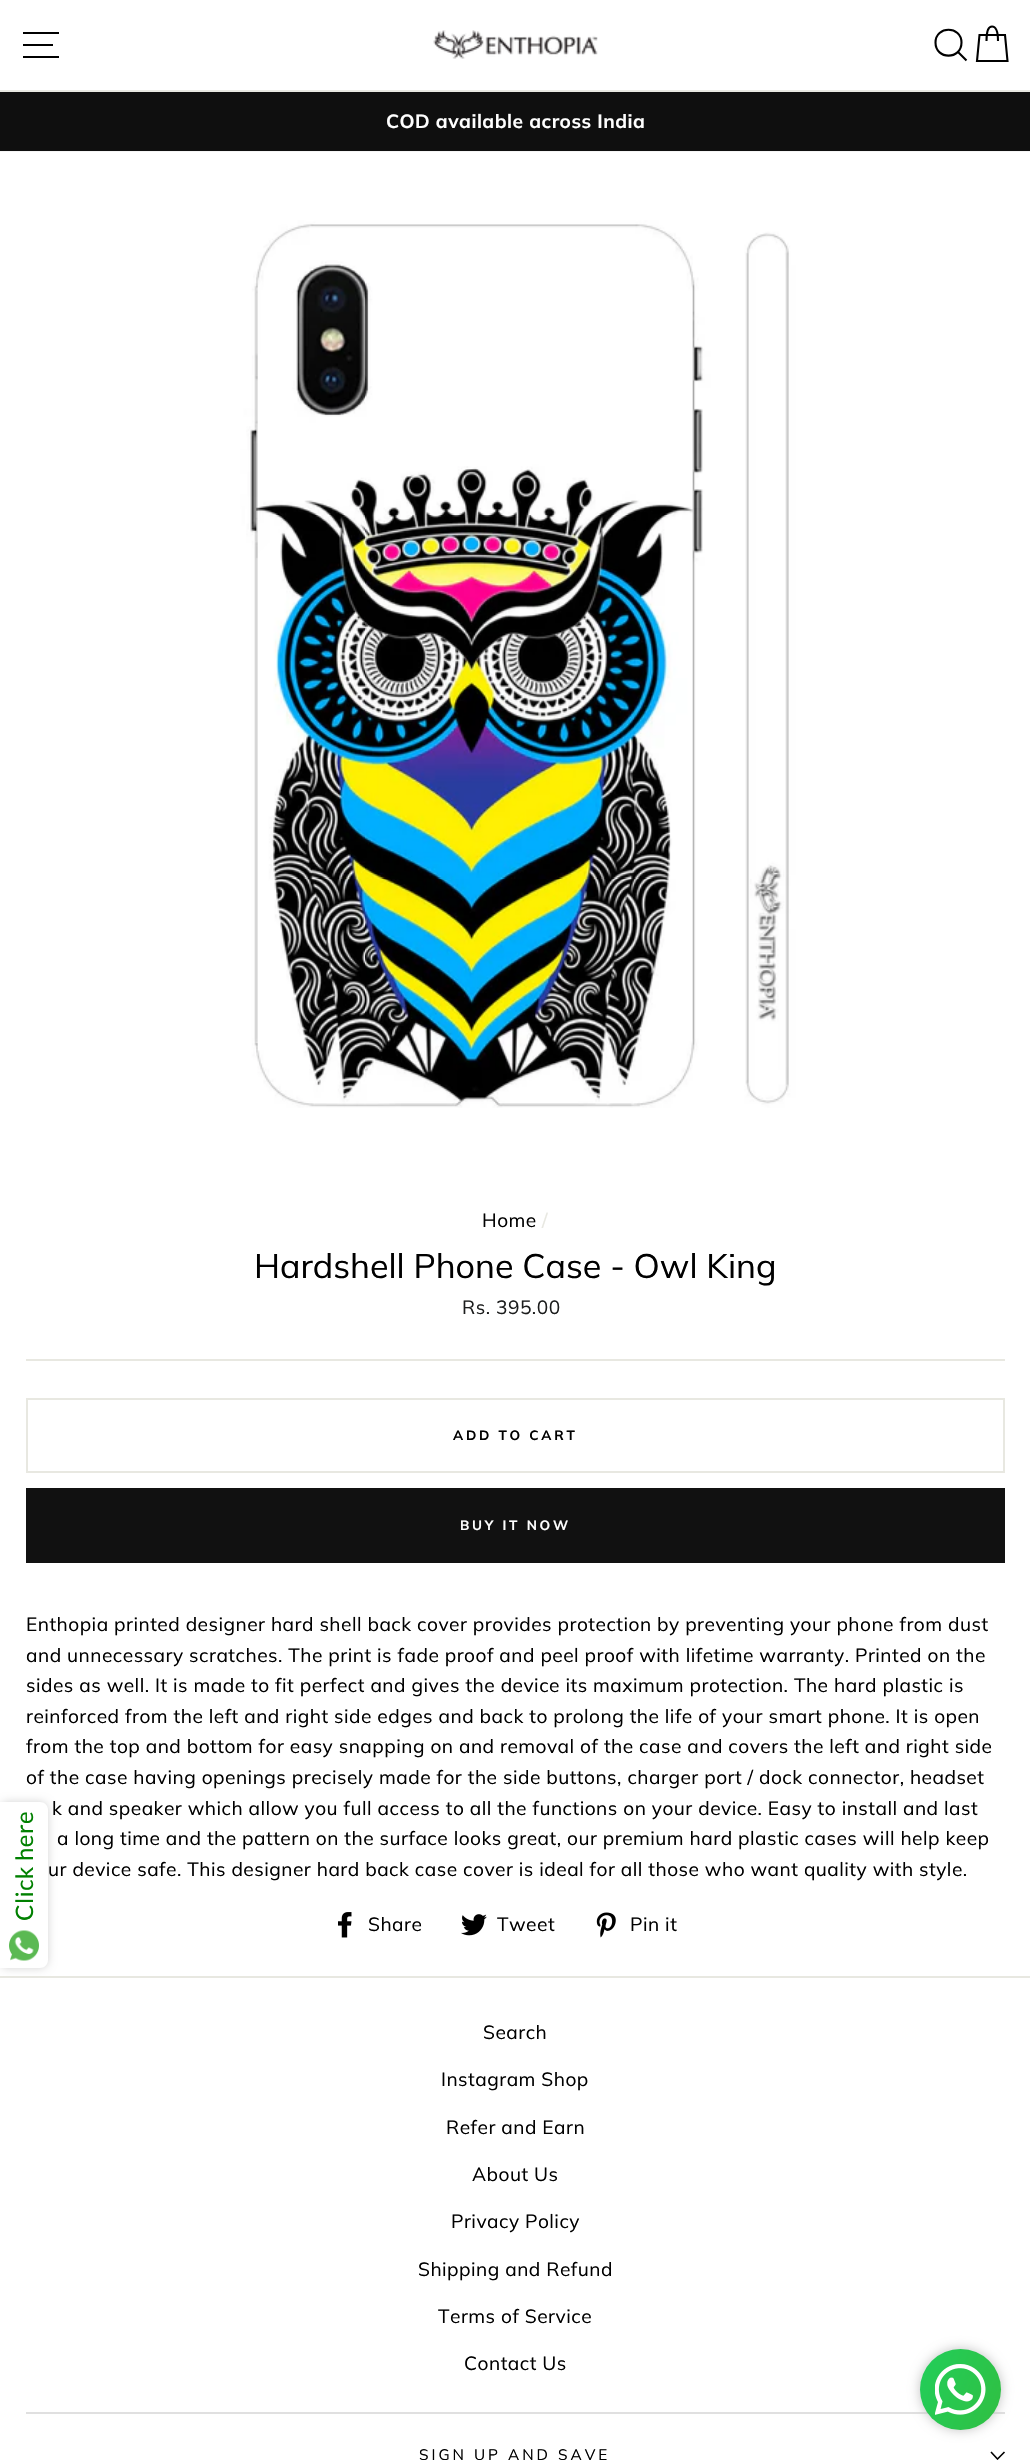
static SkFont makeFont(const char* family, int weight, float size, bool italic = false) {
  SkFontStyle style(weight, SkFontStyle::kNormal_Width,
    italic ? SkFontStyle::kItalic_Slant : SkFontStyle::kUpright_Slant);
  SkFont result(fontMgr->matchFamilyStyle(family, style), size);
  result.setSubpixel(true);
  return result;
}

static void text(SkCanvas* c, const char* s, float x, float y, const SkFont& font, SkColor color) {
  SkPaint ink(SkColor4f::FromColor(color));
  ink.setAntiAlias(true);
  c->drawString(s, x, y, font, ink);
}

static void spacedText(SkCanvas* c, const char* s, float x, float y, const SkFont& font, const SkPaint& ink, float letter, float word) {
  std::vector<SkGlyphID> glyphs(font.countText(s, strlen(s), SkTextEncoding::kUTF8));
  std::vector<float> xs(glyphs.size());
  font.textToGlyphs(s, strlen(s), SkTextEncoding::kUTF8, glyphs);
  font.getXPos(glyphs, xs, x);
  float extra = 0;
  for (size_t i = 0; i < glyphs.size(); i++) {
    xs[i] += extra;
    extra += letter + word * (glyphs[i] == font.unicharToGlyph(' '));
  }
  c->drawTextBlob(SkTextBlob::MakeFromPosHGlyphs(glyphs, xs, y, font), 0, 0, ink);
}

static void box(SkCanvas* c, float l, float t, float r, float b, SkColor color) {
  SkPaint ink(SkColor4f::FromColor(color));
  ink.setAntiAlias(true);
  c->drawRect(SkRect::MakeLTRB(l, t, r, b), ink);
}

static void picture(SkCanvas* c, const char* path, float l, float t, float r, float b) {
  auto image = SkImages::DeferredFromEncodedData(SkData::MakeFromFileName(path));
  c->drawImageRect(image, SkRect::MakeLTRB(l, t, r, b), SkSamplingOptions());
}

void draw(SkCanvas* c) {
  SkPaint paint;
  paint.setAntiAlias(true);
  c->clear(0xffffffff);
  box(c, 0, 1976, 1030, 1978, 0xffe8e8e1);
  paint.setColor(0xffd3d3d3);
  paint.setMaskFilter(SkMaskFilter::MakeBlur(kNormal_SkBlurStyle, 4));
  c->drawRoundRect(SkRect::MakeLTRB(0, 1802, 48, 1968), 8, 8, paint);
  paint.setMaskFilter(nullptr);
  paint.setColor(0xffffffff);
  c->drawPath(SkPathBuilder().moveTo(0, 1802).lineTo(40, 1802).cubicTo(44.5f, 1802, 48, 1805.5f, 48, 1810).lineTo(48, 1960).cubicTo(48, 1964.5f, 44.5f, 1968, 40, 1968).lineTo(0, 1968).close().detach(), paint);
  SkFont face1 = makeFont("Lato", 400, 24);
  paint.setColor(0xff008000);
  c->save();
  c->rotate(-90, 33, 1921);
  spacedText(c, "Click here", 33, 1921, face1, paint, 0.48f, 0);
  c->restore();
  picture(c, "img_01.png", 9, 1930, 39, 1961);
  box(c, 0, 90, 1030, 92, 0xffe8e8e1);
  paint.setStyle(SkPaint::kStroke_Style);
  paint.setStrokeWidth(2.1f);
  paint.setColor(0xff000000);
  c->drawPath(SkPathBuilder().moveTo(23, 33).lineTo(59, 33).moveTo(23, 45).lineTo(53, 45).moveTo(23, 57).lineTo(59, 57).detach(), paint);
  picture(c, "img_02.png", 433, 30, 598, 59);
  c->drawPath(SkPathBuilder().moveTo(961.5f, 42.5f).cubicTo(961.5f, 60, 935.5f, 60, 935.5f, 42.5f).cubicTo(935.5f, 25.5f, 961.5f, 25.5f, 961.5f, 42.5f).close().moveTo(966.5f, 60.5f).lineTo(958, 52).detach(), paint);
  c->drawPath(SkPathBuilder().moveTo(986.5f, 41).cubicTo(986.5f, 29.5f, 989, 26.5f, 992, 26.5f).cubicTo(995.5f, 26.5f, 998, 29.5f, 998, 41).moveTo(979.5f, 35).lineTo(1005, 35).lineTo(1007.5f, 61).lineTo(977, 61).close().detach(), paint);
  box(c, 0, 92, 1030, 152, 0xff0f0f0f);
  SkFont face2 = makeFont("Muli", 700, 19.12f);
  paint.setStyle(SkPaint::kFill_Style);
  paint.setColor(0xffffffff);
  spacedText(c, "COD available across India", 386, 128, face2, paint, 0.48f, 0);
  picture(c, "img_03.png", 0, 151, 1030, 1108);
  SkFont face3 = makeFont("Muli", 400, 19.12f);
  paint.setColor(0xff000000);
  spacedText(c, "Home", 482, 1227, face3, paint, 0.48f, 0);
  paint.setColor(0xffe8e8e1);
  spacedText(c, "/", 542, 1227, face3, paint, 0.48f, 0);
  SkFont face4 = makeFont("Muli", 400, 34);
  text(c, "Hardshell Phone Case - Owl King", 254, 1278, face4, 0xff000000);
  paint.setColor(0xff1c1d1d);
  spacedText(c, "Rs. 395.00", 462, 1314, face3, paint, 0.48f, 0);
  box(c, 26, 1359, 1005, 1361, 0xffe8e8e1);
  paint.setStyle(SkPaint::kStroke_Style);
  paint.setStrokeWidth(2);
  paint.setColor(0xffe8e8e1);
  c->drawRect(SkRect::MakeLTRB(27, 1399, 1004, 1472), paint);
  SkFont face5 = makeFont("Muli", 700, 13.5f);
  paint.setStyle(SkPaint::kFill_Style);
  paint.setColor(0xff000000);
  spacedText(c, "ADD TO CART", 453, 1440, face5, paint, 2.75f, 0);
  box(c, 26, 1488, 1005, 1563, 0xff111111);
  paint.setColor(0xffffffff);
  spacedText(c, "BUY IT NOW", 460, 1530, face5, paint, 2.75f, 0);
  paint.setColor(0xff000000);
  spacedText(c, "Enthopia printed designer hard shell back cover provides protection by preventing your phone from dust", 26, 1631, face3, paint, 0.48f, 0);
  spacedText(c, "and unnecessary scratches. The print is fade proof and peel proof with lifetime warranty. Printed on the", 26, 1662, face3, paint, 0.48f, 0);
  spacedText(c, "sides as well. It is made to fit perfect and gives the device its maximum protection. The hard plastic is", 26, 1692, face3, paint, 0.48f, 0);
  spacedText(c, "reinforced from the left and right side edges and back to prolong the life of your smart phone. It is open", 26, 1723, face3, paint, 0.48f, 0);
  spacedText(c, "from the top and bottom for easy snapping on and removal of the case and covers the left and right side", 26, 1753, face3, paint, 0.48f, 0);
  spacedText(c, "of the case having openings precisely made for the side buttons, charger port / dock connector, headset", 26, 1784, face3, paint, 0.48f, 0);
  spacedText(c, "k and speaker which allow you full access to all the functions on your device. Easy to install and last", 52, 1815, face3, paint, 0.48f, 0);
  spacedText(c, "a long time and the pattern on the surface looks great, our premium hard plastic cases will help keep", 57, 1845, face3, paint, 0.48f, 0);
  spacedText(c, "ur device safe. This designer hard back case cover is ideal for all those who want quality with style.", 48, 1876, face3, paint, 0.48f, 0);
  picture(c, "img_04.png", 338, 1912, 352, 1938);
  spacedText(c, "Share", 368, 1931, face3, paint, 0.48f, 0);
  picture(c, "img_05.png", 461, 1914, 487, 1936);
  spacedText(c, "Tweet", 497, 1931, face3, paint, 0.48f, 0);
  picture(c, "img_06.png", 596, 1912, 616, 1938);
  spacedText(c, "Pin it", 630, 1931, face3, paint, 0.48f, 0);
  spacedText(c, "Search", 483, 2039, face3, paint, 0.48f, 0);
  spacedText(c, "Instagram Shop", 441, 2086, face3, paint, 0.48f, 0);
  spacedText(c, "Refer and Earn", 446, 2134, face3, paint, 0.48f, 0);
  spacedText(c, "About Us", 472, 2181, face3, paint, 0.48f, 0);
  spacedText(c, "Privacy Policy", 451, 2228, face3, paint, 0.48f, 0);
  spacedText(c, "Shipping and Refund", 418, 2276, face3, paint, 0.48f, 0);
  spacedText(c, "Terms of Service", 438, 2323, face3, paint, 0.48f, 0);
  spacedText(c, "Contact Us", 464, 2370, face3, paint, 0.48f, 0);
  box(c, 26, 2412, 1005, 2414, 0xffe0e0e0);
  SkFont face6 = makeFont("Muli", 400, 15.25f);
  spacedText(c, "SIGN UP AND SAVE", 419, 2460, face6, paint, 3, 0);
  paint.setStyle(SkPaint::kStroke_Style);
  paint.setStrokeWidth(1.6f);
  c->drawPath(SkPathBuilder().moveTo(991, 2452).lineTo(997.5f, 2459).lineTo(1004.5f, 2452).detach(), paint);
  paint.setStyle(SkPaint::kFill_Style);
  paint.setColor(0xffc2c2c2);
  paint.setMaskFilter(SkMaskFilter::MakeBlur(kNormal_SkBlurStyle, 6));
  c->drawRoundRect(SkRect::MakeLTRB(920, 2349, 1001, 2430), 40.5f, 40.5f, paint);
  paint.setMaskFilter(nullptr);
  {
    const SkColor colors[] = {0xff22ce5a, 0xff22ce5a, 0xff30bf42};
    const float stops[] = {0, 0, 1};
    const SkPoint ends[] = {{911, 2369}, {1009, 2410}};
    paint.setShader(SkGradientShader::MakeLinear(ends, colors, stops, 3, SkTileMode::kClamp));
    paint.setAlpha(255);
  }
  c->drawCircle(960.5f, 2389.5f, 40.5f, paint);
  picture(c, "img_07.png", 935, 2364, 986, 2415);
}
